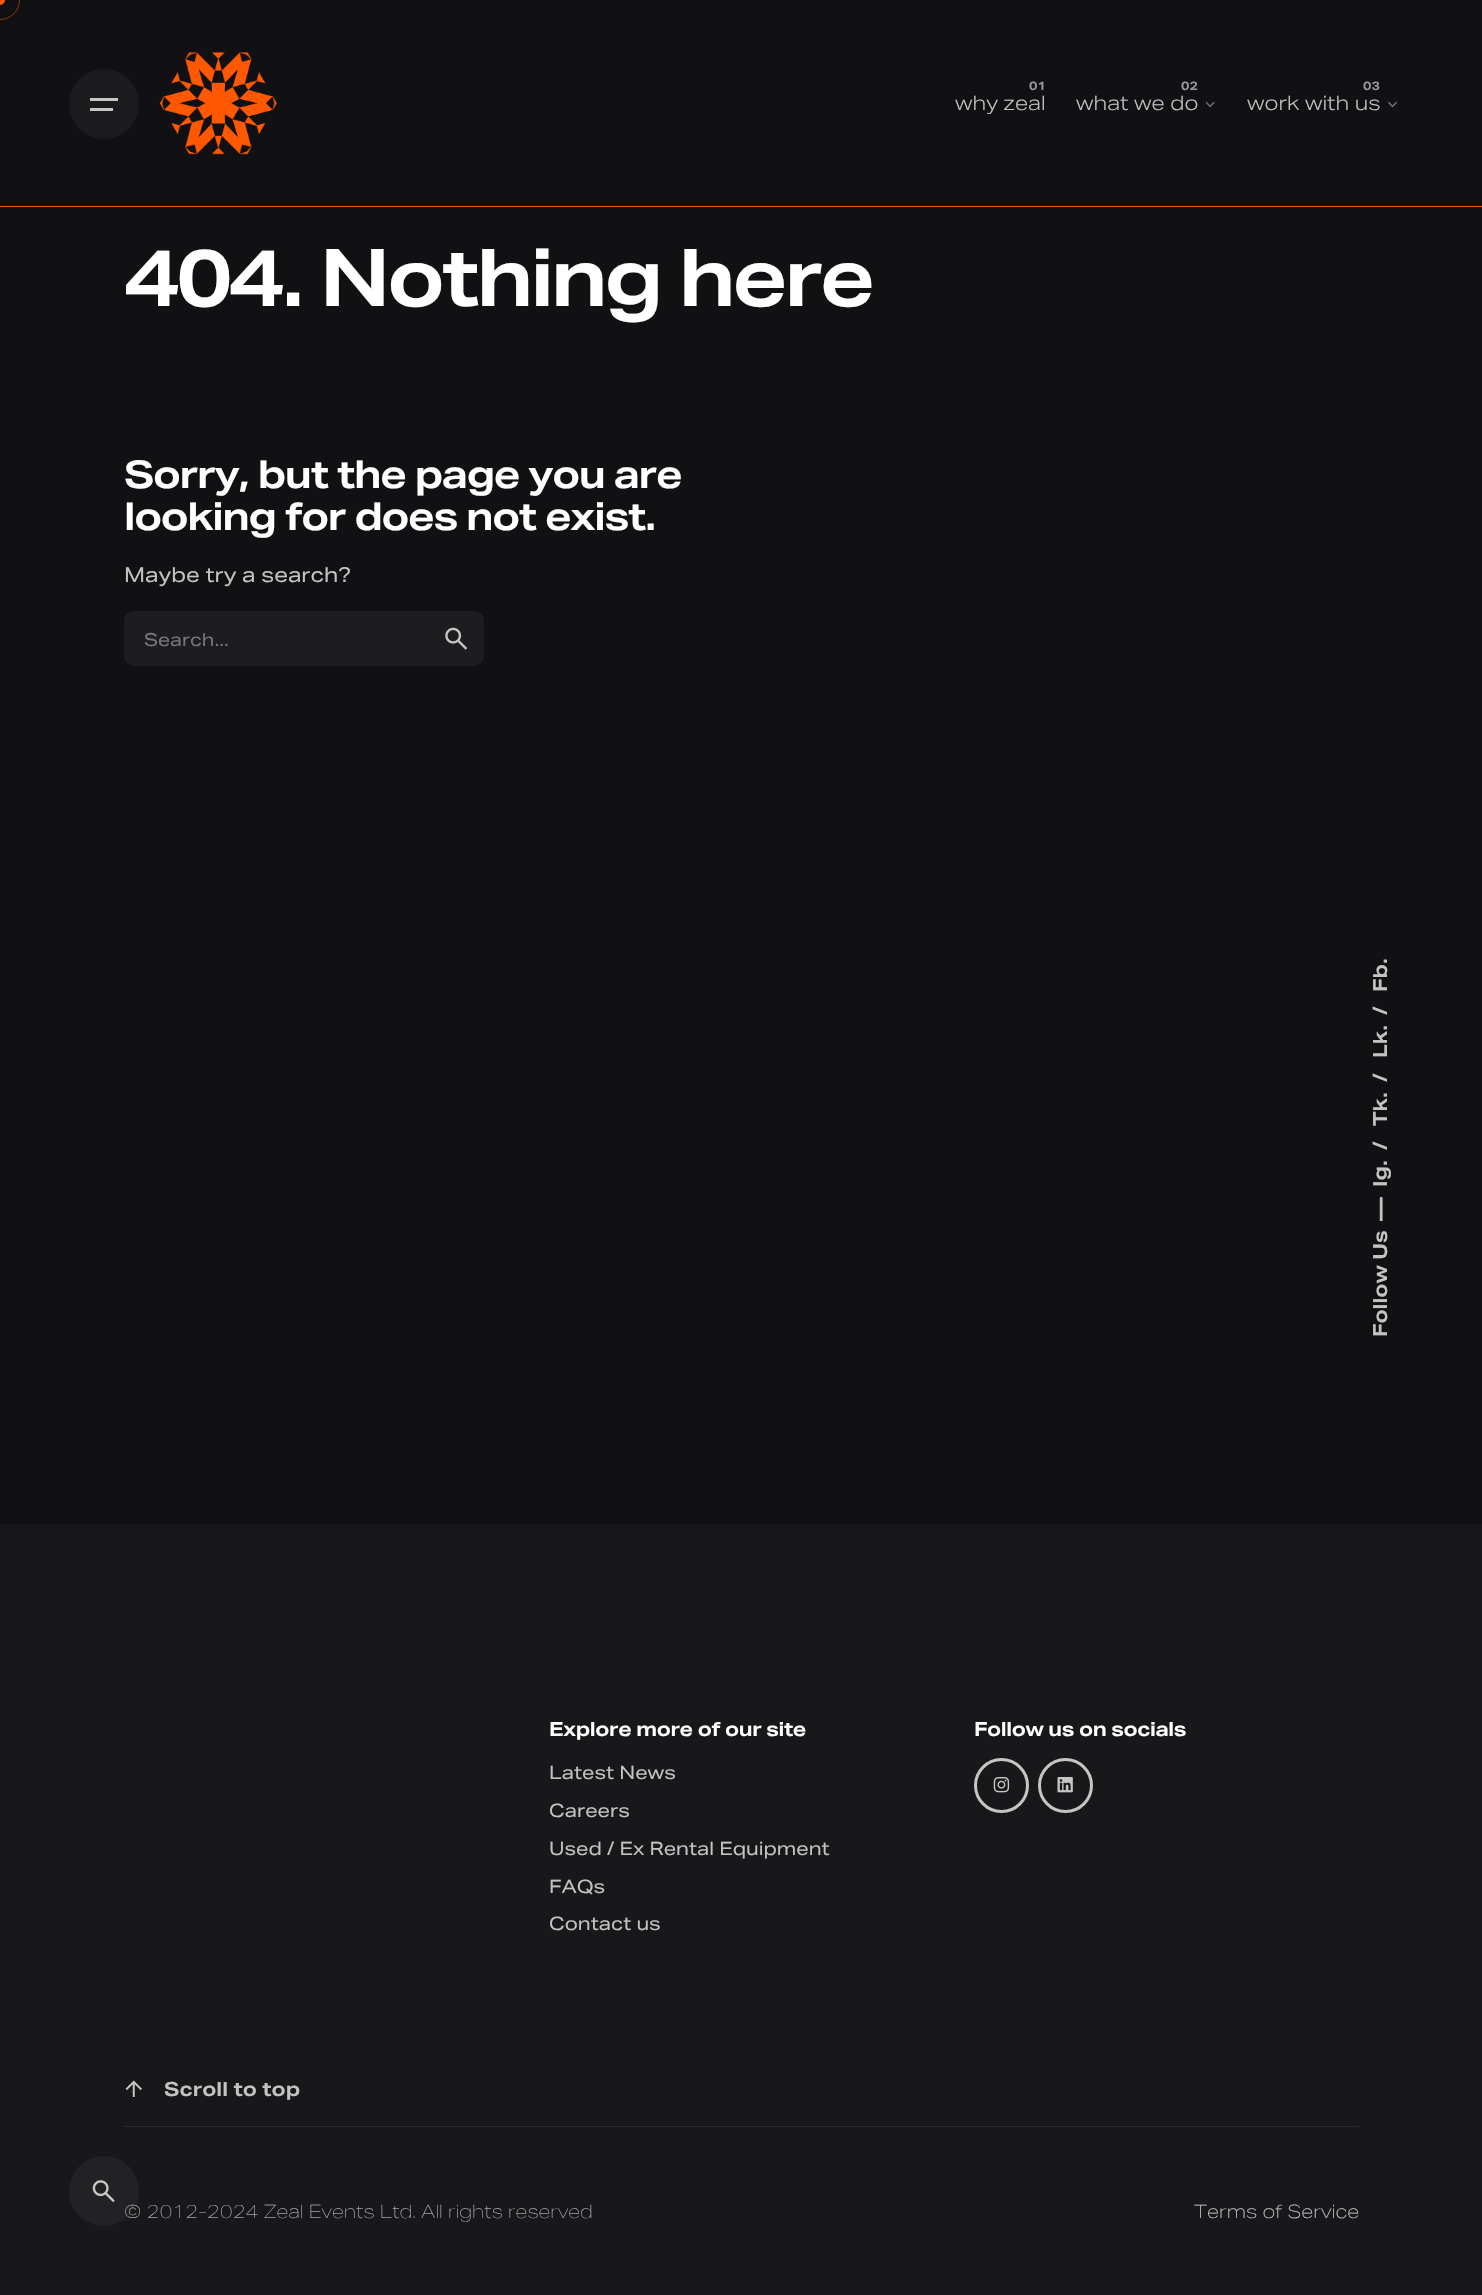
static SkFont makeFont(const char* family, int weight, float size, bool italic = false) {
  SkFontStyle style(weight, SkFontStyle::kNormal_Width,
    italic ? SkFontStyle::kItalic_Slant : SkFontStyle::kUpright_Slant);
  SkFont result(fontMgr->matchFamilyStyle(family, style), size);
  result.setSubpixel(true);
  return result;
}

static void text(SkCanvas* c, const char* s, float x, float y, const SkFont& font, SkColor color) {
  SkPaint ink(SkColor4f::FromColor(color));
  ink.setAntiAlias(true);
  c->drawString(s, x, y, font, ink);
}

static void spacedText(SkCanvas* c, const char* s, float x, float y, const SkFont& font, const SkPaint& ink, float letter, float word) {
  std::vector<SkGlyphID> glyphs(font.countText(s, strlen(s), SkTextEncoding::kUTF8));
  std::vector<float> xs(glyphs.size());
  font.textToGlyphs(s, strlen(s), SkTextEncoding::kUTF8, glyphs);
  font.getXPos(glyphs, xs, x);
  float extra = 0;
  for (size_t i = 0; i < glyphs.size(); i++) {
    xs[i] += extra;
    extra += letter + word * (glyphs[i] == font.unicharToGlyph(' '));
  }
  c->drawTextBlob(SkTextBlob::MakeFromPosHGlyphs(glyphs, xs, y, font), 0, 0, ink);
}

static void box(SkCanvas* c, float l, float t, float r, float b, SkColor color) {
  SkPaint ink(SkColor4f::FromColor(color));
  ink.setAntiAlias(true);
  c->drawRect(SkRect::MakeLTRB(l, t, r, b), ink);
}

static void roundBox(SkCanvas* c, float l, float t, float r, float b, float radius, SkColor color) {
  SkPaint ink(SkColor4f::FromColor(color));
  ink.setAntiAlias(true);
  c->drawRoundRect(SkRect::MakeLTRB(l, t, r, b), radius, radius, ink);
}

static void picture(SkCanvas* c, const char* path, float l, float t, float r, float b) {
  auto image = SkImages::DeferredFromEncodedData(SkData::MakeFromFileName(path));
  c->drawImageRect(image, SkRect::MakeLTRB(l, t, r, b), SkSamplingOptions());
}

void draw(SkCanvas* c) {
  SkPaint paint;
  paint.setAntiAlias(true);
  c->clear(0xff111013);
  paint.setStyle(SkPaint::kStroke_Style);
  paint.setStrokeWidth(1);
  paint.setColor(0xff88340a);
  c->drawCircle(0, 0, 19.5f, paint);
  paint.setStyle(SkPaint::kFill_Style);
  paint.setColor(0xffff5800);
  c->drawCircle(0, 0, 5, paint);
  box(c, 0, 206, 1482, 207, 0xffff5800);
  paint.setColor(0xff1b1a1c);
  c->drawCircle(104, 104, 35, paint);
  box(c, 90, 98, 118, 101, 0xffc6c6c6);
  box(c, 90, 108, 113, 111, 0xffc6c6c6);
  picture(c, "img_01.png", 159, 52, 278, 155);
  SkFont face1 = makeFont("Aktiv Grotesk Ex", 700, 12);
  text(c, "01", 1029, 90, face1, 0xff979698);
  SkFont face2 = makeFont("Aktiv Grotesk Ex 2", 300, 20);
  text(c, "why zeal", 955, 110, face2, 0xffc4c3c4);
  text(c, "02", 1181, 90, face1, 0xff979698);
  text(c, "what we do", 1076, 110, face2, 0xffc4c3c4);
  picture(c, "img_02.png", 1206, 101, 1215, 108);
  text(c, "03", 1363, 90, face1, 0xff979698);
  text(c, "work with us", 1247, 110, face2, 0xffc4c3c4);
  picture(c, "img_03.png", 1388, 101, 1397, 108);
  SkFont face3 = makeFont("Aktiv Grotesk Ex", 700, 80);
  paint.setColor(0xffffffff);
  spacedText(c, "404. Nothing here", 124, 306, face3, paint, -3.6f, 0);
  SkFont face4 = makeFont("Aktiv Grotesk Ex", 700, 38.4f);
  spacedText(c, "Sorry, but the page you are", 124, 488, face4, paint, -1.35f, 0);
  spacedText(c, "looking for does not exist.", 124, 530, face4, paint, -1.35f, 0);
  SkFont face5 = makeFont("Aktiv Grotesk Ex", 400, 20.5f);
  text(c, "Maybe try a search?", 124, 582, face5, 0xffc4c3c4);
  roundBox(c, 124, 611, 484, 666, 10, 0xff1d1c1f);
  SkFont face6 = makeFont("Aktiv Grotesk Ex", 400, 18);
  text(c, "Search...", 144, 646, face6, 0xff777779);
  picture(c, "img_04.png", 445, 627, 468, 650);
  SkFont face7 = makeFont("Aktiv Grotesk Ex", 700, 19.5f);
  c->save();
  c->rotate(-90, 1387, 992);
  text(c, "Fb.", 1387, 992, face7, 0xffc4c3c4);
  c->restore();
  c->save();
  c->rotate(-90, 1387, 1015);
  text(c, "/", 1387, 1015, face7, 0xffc4c3c4);
  c->restore();
  c->save();
  c->rotate(-90, 1387, 1058);
  text(c, "Lk.", 1387, 1058, face7, 0xffc4c3c4);
  c->restore();
  c->save();
  c->rotate(-90, 1387, 1082);
  text(c, "/", 1387, 1082, face7, 0xffc4c3c4);
  c->restore();
  c->save();
  c->rotate(-90, 1387, 1126);
  text(c, "Tk.", 1387, 1126, face7, 0xffc4c3c4);
  c->restore();
  c->save();
  c->rotate(-90, 1387, 1150);
  text(c, "/", 1387, 1150, face7, 0xffc4c3c4);
  c->restore();
  c->save();
  c->rotate(-90, 1387, 1187);
  text(c, "Ig.", 1387, 1187, face7, 0xffc4c3c4);
  c->restore();
  c->save();
  c->rotate(-90, 1387, 1221);
  text(c, "—", 1387, 1221, face7, 0xffc4c3c4);
  c->restore();
  c->save();
  c->rotate(-90, 1387, 1337);
  text(c, "Follow Us", 1387, 1337, face7, 0xffc4c3c4);
  c->restore();
  box(c, 0, 1524, 1482, 2295, 0xff18171a);
  paint.setColor(0x14888889);
  c->drawCircle(104, 2191, 35, paint);
  picture(c, "img_05.png", 92, 2180, 115, 2203);
  paint.setColor(0xffffffff);
  spacedText(c, "Explore more of our site", 549, 1736, face7, paint, -0.4f, 0);
  SkFont face8 = makeFont("Aktiv Grotesk Ex", 400, 18.5f);
  text(c, "Latest News", 549, 1779, face8, 0xffc4c3c4);
  text(c, "Careers", 549, 1817, face8, 0xffc4c3c4);
  text(c, "Used / Ex Rental Equipment", 549, 1855, face8, 0xffc4c3c4);
  text(c, "FAQs", 549, 1893, face8, 0xffc4c3c4);
  text(c, "Contact us", 549, 1930, face8, 0xffc4c3c4);
  spacedText(c, "Follow us on socials", 974, 1736, face7, paint, -0.4f, 0);
  paint.setStyle(SkPaint::kStroke_Style);
  paint.setStrokeWidth(3);
  paint.setColor(0xffc5c5c6);
  c->drawCircle(1001.5f, 1785.5f, 26, paint);
  picture(c, "img_06.png", 993, 1777, 1010, 1793);
  c->drawCircle(1065.5f, 1785.5f, 26, paint);
  picture(c, "img_07.png", 1057, 1777, 1073, 1793);
  picture(c, "img_08.png", 125, 2080, 142, 2097);
  text(c, "Scroll to top", 164, 2096, face7, 0xffc4c3c4);
  box(c, 124, 2126, 1359, 2127, 0xff2a292c);
  SkFont face9 = makeFont("Aktiv Grotesk Ex", 300, 18.45f);
  text(c, "© 2012-2024 Zeal Events Ltd. All rights reserved", 124, 2218, face9, 0xffc4c3c4);
  SkFont face10 = makeFont("Aktiv Grotesk Ex", 100, 18.45f);
  text(c, "Terms of Service", 1194, 2218, face10, 0xffc4c3c4);
}
